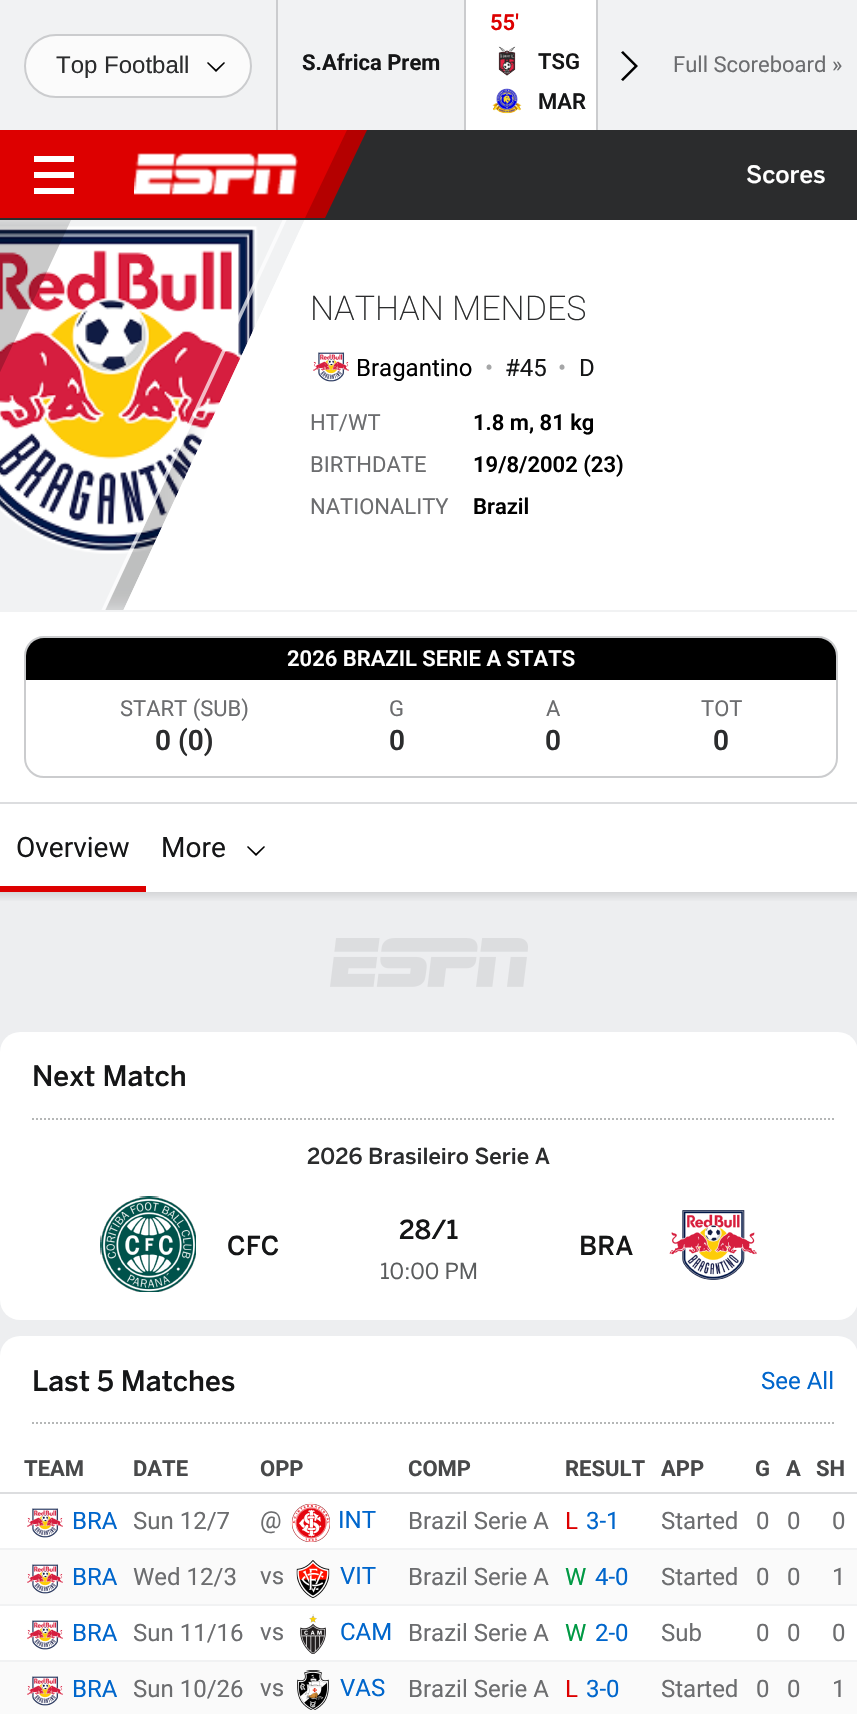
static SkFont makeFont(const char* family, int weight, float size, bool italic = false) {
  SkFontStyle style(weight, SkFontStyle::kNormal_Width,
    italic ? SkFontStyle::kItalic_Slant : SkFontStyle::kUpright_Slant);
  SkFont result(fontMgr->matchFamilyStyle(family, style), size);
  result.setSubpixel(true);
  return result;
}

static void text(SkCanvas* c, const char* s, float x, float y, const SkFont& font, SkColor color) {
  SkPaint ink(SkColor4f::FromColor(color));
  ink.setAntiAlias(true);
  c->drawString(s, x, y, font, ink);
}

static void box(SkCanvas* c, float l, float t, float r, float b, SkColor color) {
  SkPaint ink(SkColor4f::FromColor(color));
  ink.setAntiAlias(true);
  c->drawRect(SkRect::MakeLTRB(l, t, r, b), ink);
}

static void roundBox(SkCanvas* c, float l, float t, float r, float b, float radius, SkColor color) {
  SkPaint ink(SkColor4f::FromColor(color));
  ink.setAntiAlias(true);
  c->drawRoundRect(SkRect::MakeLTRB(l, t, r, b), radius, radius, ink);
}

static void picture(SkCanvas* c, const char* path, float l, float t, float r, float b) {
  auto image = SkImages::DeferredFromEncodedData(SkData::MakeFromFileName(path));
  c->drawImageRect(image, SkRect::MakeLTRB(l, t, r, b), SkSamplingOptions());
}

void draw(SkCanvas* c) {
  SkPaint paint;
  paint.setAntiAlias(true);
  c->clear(0xffedeef0);
  box(c, 0, 0, 857, 130, 0xfff1f2f3);
  box(c, 276, 0, 278, 130, 0xffcbccce);
  paint.setColor(0xfffbfbfb);
  c->drawRoundRect(SkRect::MakeLTRB(25, 35, 251, 97), 31, 31, paint);
  paint.setStyle(SkPaint::kStroke_Style);
  paint.setStrokeWidth(2);
  paint.setColor(0xffcbccce);
  c->drawRoundRect(SkRect::MakeLTRB(25, 35, 251, 97), 31, 31, paint);
  SkFont face1 = makeFont("Liberation Sans", 400, 24);
  text(c, "Top Football", 56, 73, face1, 0xff2b2c2d);
  paint.setStyle(SkPaint::kFill_Style);
  paint.setColor(0xff000000);
  c->drawPath(SkPathBuilder().moveTo(225, 63).lineTo(224, 62).lineTo(216, 69.5f).lineTo(208, 62).lineTo(207, 63).lineTo(216, 72).close().detach(), paint);
  box(c, 464, 0, 466, 130, 0xffcbccce);
  SkFont face2 = makeFont("Roboto", 700, 22);
  text(c, "S.Africa Prem", 302, 70, face2, 0xff151617);
  box(c, 466, 0, 596, 130, 0xffffffff);
  SkFont face3 = makeFont("Roboto", 600, 22);
  text(c, "55'", 490, 30, face3, 0xffdd0000);
  picture(c, "img_01.png", 498, 46, 516, 76);
  text(c, "TSG", 538, 69, face3, 0xff151617);
  picture(c, "img_02.png", 492, 88, 522, 114);
  text(c, "MAR", 538, 109, face3, 0xff151617);
  box(c, 596, 0, 598, 130, 0xffcbccce);
  c->drawPath(SkPathBuilder().moveTo(623, 51).lineTo(621, 52.5f).lineTo(634.5f, 66).lineTo(621, 79.5f).lineTo(623, 81).lineTo(638, 66).close().detach(), paint);
  SkFont face4 = makeFont("Roboto", 400, 22);
  text(c, "Full Scoreboard »", 673, 72, face4, 0xff6c6d6f);
  box(c, 0, 220, 857, 802, 0xffffffff);
  box(c, 0, 610, 857, 612, 0xfff1f2f3);
  box(c, 0, 220, 305, 610, 0xfff1f2f3);
  picture(c, "img_04.png", 0, 226, 259, 554);
  paint.setStyle(SkPaint::kStroke_Style);
  paint.setColor(0xffcbccce);
  c->drawRoundRect(SkRect::MakeLTRB(25, 637, 837, 777), 19, 19, paint);
  paint.setStyle(SkPaint::kFill_Style);
  paint.setColor(0xff000000);
  c->drawPath(SkPathBuilder().moveTo(44, 638).lineTo(818, 638).cubicTo(828, 638, 836, 646, 836, 656).lineTo(836, 680).lineTo(26, 680).lineTo(26, 656).cubicTo(26, 646, 34, 638, 44, 638).close().detach(), paint);
  c->save();
  c->clipRect(SkRect::MakeLTRB(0, 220, 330, 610));
  c->clipPath(SkPathBuilder(SkPathFillType::kEvenOdd).moveTo(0, 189).lineTo(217, 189).lineTo(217, 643).lineTo(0, 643).close().moveTo(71.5f, 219).lineTo(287.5f, 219).lineTo(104.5f, 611).lineTo(-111.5f, 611).close().detach(), true);
  paint.setColor(0x36000000);
  paint.setMaskFilter(SkMaskFilter::MakeBlur(kNormal_SkBlurStyle, 10));
  c->drawRect(SkRect::MakeLTRB(-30, 220, 186, 612), paint);
  paint.setMaskFilter(nullptr);
  c->restore();
  box(c, 0, 130, 857, 220, 0xff2b2c2d);
  paint.setColor(0xffb40000);
  c->drawPath(SkPathBuilder().moveTo(107, 130).lineTo(367, 130).lineTo(325, 218).lineTo(65, 218).close().detach(), paint);
  paint.setColor(0xffdd0000);
  c->drawPath(SkPathBuilder().moveTo(-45, 130).lineTo(347, 130).lineTo(305, 218).lineTo(-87, 218).close().detach(), paint);
  picture(c, "img_03.png", 134, 153, 298, 195);
  box(c, 34, 172, 74, 178, 0xffffffff);
  box(c, 34, 156, 74, 162, 0xffffffff);
  box(c, 34, 188, 74, 194, 0xffffffff);
  SkFont face5 = makeFont("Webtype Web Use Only", 500, 24);
  text(c, "Scores", 746, 183, face5, 0xffffffff);
  box(c, 0, 802, 857, 804, 0xffdcdddf);
  c->save();
  c->clipRect(SkRect::MakeLTRB(0, 220, 330, 610));
  paint.setColor(0xb3ffffff);
  c->drawPath(SkPathBuilder().moveTo(283, 219).lineTo(287, 219).lineTo(105, 611).lineTo(101, 611).close().detach(), paint);
  paint.setColor(0xffffffff);
  c->drawPath(SkPathBuilder().moveTo(305, 219).lineTo(515, 219).lineTo(333, 611).lineTo(123, 611).close().detach(), paint);
  paint.setColor(0xe6ffffff);
  c->drawPath(SkPathBuilder().moveTo(305, 219).lineTo(515, 219).lineTo(333, 611).lineTo(123, 611).close().detach(), paint);
  c->restore();
  SkFont face6 = makeFont("Roboto", 200, 34);
  text(c, "NATHAN MENDES", 310, 320, face6, 0xff2b2c2d);
  picture(c, "img_05.png", 313, 352, 349, 382);
  SkFont face7 = makeFont("Roboto", 400, 24);
  text(c, "Bragantino", 356, 376, face7, 0xff000000);
  text(c, "•", 485, 376, face7, 0xffa5a6a7);
  text(c, "#45", 505, 376, face7, 0xff151617);
  text(c, "•", 558, 376, face7, 0xffa5a6a7);
  text(c, "D", 579, 376, face7, 0xff151617);
  text(c, "HT/WT", 310, 430, face4, 0xff6c6d6f);
  text(c, "1.8 m, 81 kg", 473, 430, face3, 0xff000000);
  text(c, "BIRTHDATE", 310, 472, face4, 0xff6c6d6f);
  text(c, "19/8/2002 (23)", 473, 472, face3, 0xff000000);
  text(c, "NATIONALITY", 310, 514, face4, 0xff6c6d6f);
  text(c, "Brazil", 473, 514, face3, 0xff000000);
  text(c, "2026 BRAZIL SERIE A STATS", 287, 666, face3, 0xffffffff);
  text(c, "START (SUB)", 120, 716, face4, 0xff6c6d6f);
  SkFont face8 = makeFont("Roboto", 600, 28);
  text(c, "0 (0)", 155, 750, face8, 0xff2b2c2d);
  text(c, "G", 389, 716, face4, 0xff6c6d6f);
  text(c, "0", 389, 750, face8, 0xff2b2c2d);
  text(c, "A", 546, 716, face4, 0xff6c6d6f);
  text(c, "0", 545, 750, face8, 0xff2b2c2d);
  text(c, "TOT", 701, 716, face4, 0xff6c6d6f);
  text(c, "0", 713, 750, face8, 0xff2b2c2d);
  box(c, 0, 804, 857, 892, 0xffffffff);
  box(c, 0, 886, 146, 892, 0xffdd0000);
  SkFont face9 = makeFont("Roboto", 400, 28);
  text(c, "Overview", 16, 857, face9, 0xff151617);
  text(c, "More", 161, 857, face9, 0xff151617);
  paint.setColor(0xff000000);
  c->drawPath(SkPathBuilder().moveTo(265, 847).lineTo(264, 846).lineTo(256, 853.5f).lineTo(248, 846).lineTo(247, 847).lineTo(256, 856).close().detach(), paint);
  {
    const SkColor colors[] = {0xffd5d6d8, 0xffedeef0};
    const float stops[] = {0, 1};
    const SkPoint ends[] = {{429, 892}, {429, 902}};
    paint.setShader(SkGradientShader::MakeLinear(ends, colors, stops, 2, SkTileMode::kClamp));
    paint.setAlpha(255);
  }
  c->drawRect(SkRect::MakeLTRB(0, 892, 857, 901), paint);
  picture(c, "img_06.png", 330, 938, 528, 987);
  roundBox(c, 0, 1032, 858, 1320, 20, 0xffffffff);
  paint.setStyle(SkPaint::kStroke_Style);
  paint.setShader(nullptr);
  paint.setColor(0xffb5b7b7);
  paint.setPathEffect(SkDashPathEffect::Make({{2, 2}}, 0));
  c->drawPath(SkPathBuilder().moveTo(32, 1119).lineTo(834, 1119).detach(), paint);
  paint.setPathEffect(nullptr);
  SkFont face10 = makeFont("Webtype Web Use Only", 500, 28);
  text(c, "Next Match", 32, 1086, face10, 0xff151617);
  SkFont face11 = makeFont("Webtype Web Use Only", 500, 22);
  text(c, "2026 Brasileiro Serie A", 307, 1164, face11, 0xff2b2c2d);
  picture(c, "img_07.png", 100, 1196, 196, 1292);
  SkFont face12 = makeFont("Webtype Web Use Only", 500, 26);
  text(c, "CFC", 227, 1255, face12, 0xff151617);
  text(c, "28/1", 399, 1239, face12, 0xff151617);
  SkFont face13 = makeFont("Webtype Web Use Only", 400, 22);
  text(c, "10:00 PM", 380, 1279, face13, 0xff5a5c5d);
  text(c, "BRA", 579, 1255, face12, 0xff151617);
  picture(c, "img_08.png", 669, 1210, 757, 1280);
  roundBox(c, 0, 1336, 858, 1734, 20, 0xffffffff);
  paint.setPathEffect(SkDashPathEffect::Make({{2, 2}}, 0));
  c->drawPath(SkPathBuilder().moveTo(32, 1423).lineTo(834, 1423).detach(), paint);
  paint.setPathEffect(nullptr);
  text(c, "Last 5 Matches", 32, 1391, face10, 0xff151617);
  text(c, "See All", 761, 1389, face7, 0xff0066cc);
  text(c, "TEAM", 24, 1476, face2, 0xff48494a);
  text(c, "DATE", 133, 1476, face2, 0xff48494a);
  text(c, "OPP", 260, 1476, face2, 0xff48494a);
  text(c, "COMP", 408, 1476, face2, 0xff48494a);
  text(c, "RESULT", 565, 1476, face2, 0xff48494a);
  text(c, "APP", 661, 1476, face2, 0xff48494a);
  text(c, "G", 755, 1476, face2, 0xff48494a);
  text(c, "A", 786, 1476, face2, 0xff48494a);
  text(c, "SH", 816, 1476, face2, 0xff48494a);
  box(c, 0, 1492, 857, 1494, 0xffdcdddf);
  picture(c, "img_05.png", 27, 1508, 63, 1538);
  text(c, "BRA", 72, 1529, face7, 0xff0066cc);
  text(c, "Sun 12/7", 133, 1529, face7, 0xff6c6d6f);
  text(c, "@", 260, 1528, face7, 0xff6c6d6f);
  picture(c, "img_09.png", 290, 1502, 330, 1542);
  text(c, "INT", 338, 1528, face7, 0xff0066cc);
  text(c, "Brazil Serie A", 408, 1529, face7, 0xff6c6d6f);
  text(c, "L", 565, 1529, face7, 0xffdd0000);
  text(c, "3-1", 586, 1529, face7, 0xff0066cc);
  text(c, "Started", 661, 1529, face7, 0xff6c6d6f);
  text(c, "0", 756, 1529, face7, 0xff6c6d6f);
  text(c, "0", 787, 1529, face7, 0xff6c6d6f);
  text(c, "0", 832, 1529, face7, 0xff6c6d6f);
  box(c, 0, 1548, 857, 1550, 0xfff1f2f3);
  box(c, 0, 1550, 857, 1604, 0xfffafafa);
  picture(c, "img_10.png", 27, 1564, 63, 1594);
  text(c, "BRA", 72, 1585, face7, 0xff0066cc);
  text(c, "Wed 12/3", 133, 1585, face7, 0xff6c6d6f);
  text(c, "vs", 260, 1584, face7, 0xff6c6d6f);
  picture(c, "img_11.png", 296, 1560, 330, 1598);
  text(c, "VIT", 340, 1584, face7, 0xff0066cc);
  text(c, "Brazil Serie A", 408, 1585, face7, 0xff6c6d6f);
  text(c, "W", 565, 1585, face7, 0xff009944);
  text(c, "4-0", 595, 1585, face7, 0xff0066cc);
  text(c, "Started", 661, 1585, face7, 0xff6c6d6f);
  text(c, "0", 756, 1585, face7, 0xff6c6d6f);
  text(c, "0", 787, 1585, face7, 0xff6c6d6f);
  text(c, "1", 832, 1585, face7, 0xff6c6d6f);
  box(c, 0, 1604, 857, 1606, 0xfff1f2f3);
  picture(c, "img_05.png", 27, 1620, 63, 1650);
  text(c, "BRA", 72, 1641, face7, 0xff0066cc);
  text(c, "Sun 11/16", 133, 1641, face7, 0xff6c6d6f);
  text(c, "vs", 260, 1640, face7, 0xff6c6d6f);
  picture(c, "img_12.png", 300, 1614, 326, 1654);
  text(c, "CAM", 340, 1640, face7, 0xff0066cc);
  text(c, "Brazil Serie A", 408, 1641, face7, 0xff6c6d6f);
  text(c, "W", 565, 1641, face7, 0xff009944);
  text(c, "2-0", 595, 1641, face7, 0xff0066cc);
  text(c, "Sub", 661, 1641, face7, 0xff6c6d6f);
  text(c, "0", 756, 1641, face7, 0xff6c6d6f);
  text(c, "0", 787, 1641, face7, 0xff6c6d6f);
  text(c, "0", 832, 1641, face7, 0xff6c6d6f);
  box(c, 0, 1660, 857, 1662, 0xfff1f2f3);
  box(c, 0, 1662, 857, 1714, 0xfffafafa);
  picture(c, "img_10.png", 27, 1676, 63, 1706);
  text(c, "BRA", 72, 1697, face7, 0xff0066cc);
  text(c, "Sun 10/26", 133, 1697, face7, 0xff6c6d6f);
  text(c, "vs", 260, 1696, face7, 0xff6c6d6f);
  picture(c, "img_13.png", 297, 1670, 329, 1710);
  text(c, "VAS", 340, 1696, face7, 0xff0066cc);
  text(c, "Brazil Serie A", 408, 1697, face7, 0xff6c6d6f);
  text(c, "L", 565, 1697, face7, 0xffdd0000);
  text(c, "3-0", 586, 1697, face7, 0xff0066cc);
  text(c, "Started", 661, 1697, face7, 0xff6c6d6f);
  text(c, "0", 756, 1697, face7, 0xff6c6d6f);
  text(c, "0", 787, 1697, face7, 0xff6c6d6f);
  text(c, "1", 832, 1697, face7, 0xff6c6d6f);
}
